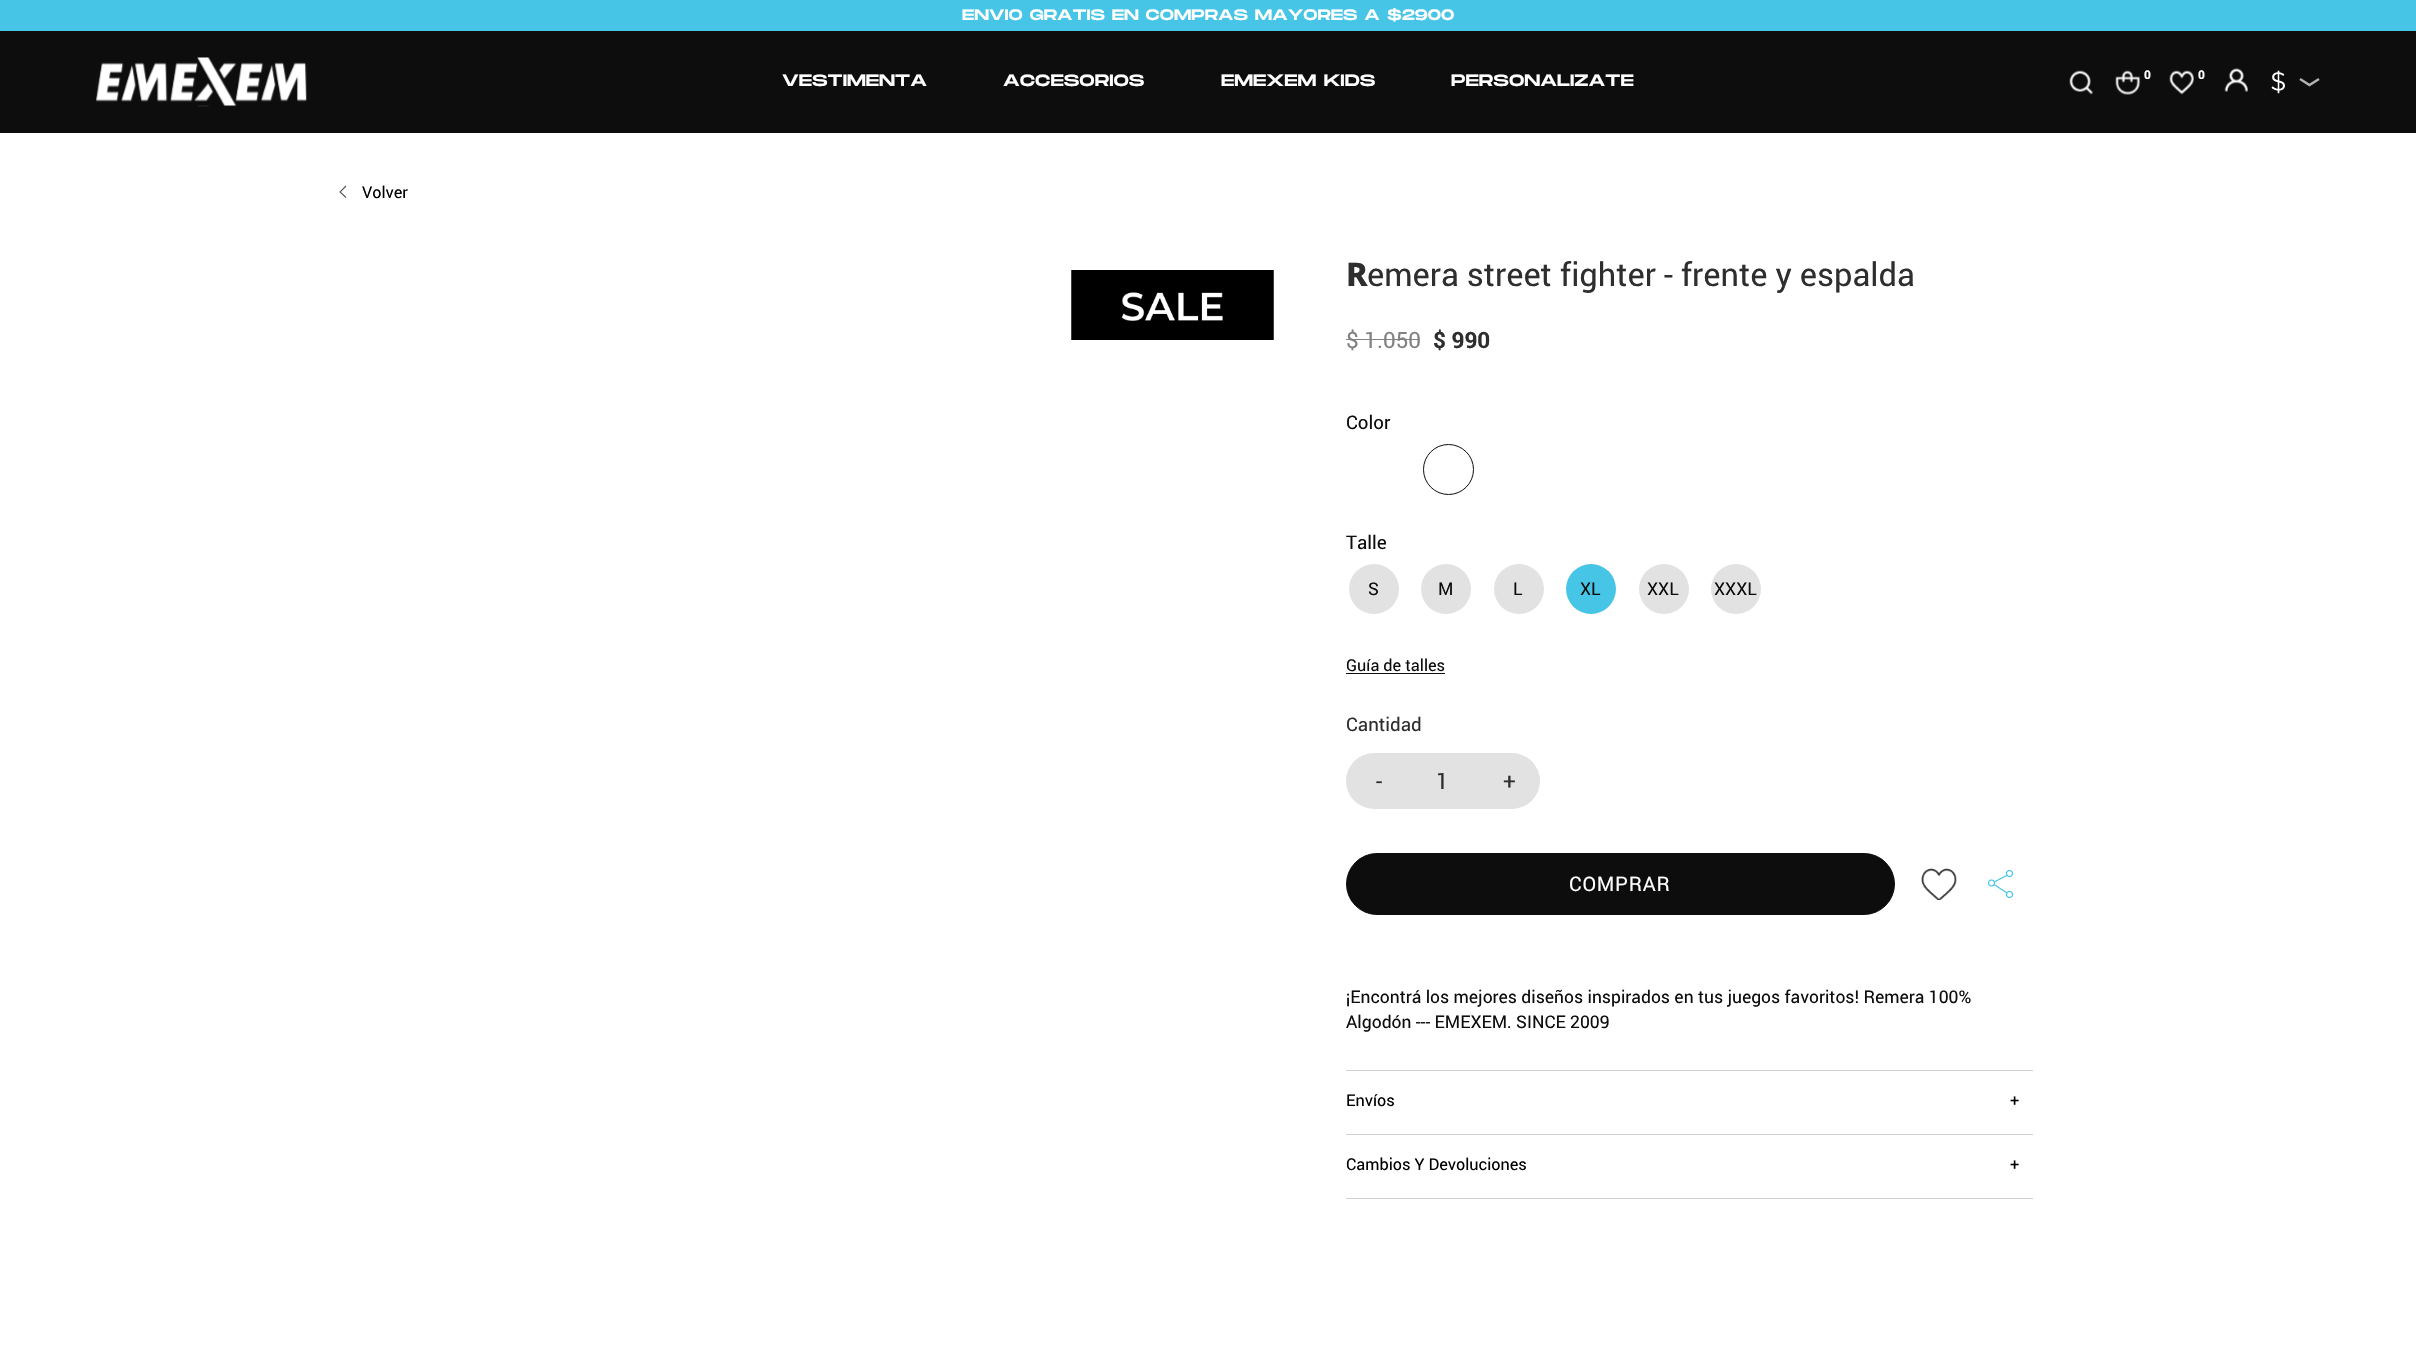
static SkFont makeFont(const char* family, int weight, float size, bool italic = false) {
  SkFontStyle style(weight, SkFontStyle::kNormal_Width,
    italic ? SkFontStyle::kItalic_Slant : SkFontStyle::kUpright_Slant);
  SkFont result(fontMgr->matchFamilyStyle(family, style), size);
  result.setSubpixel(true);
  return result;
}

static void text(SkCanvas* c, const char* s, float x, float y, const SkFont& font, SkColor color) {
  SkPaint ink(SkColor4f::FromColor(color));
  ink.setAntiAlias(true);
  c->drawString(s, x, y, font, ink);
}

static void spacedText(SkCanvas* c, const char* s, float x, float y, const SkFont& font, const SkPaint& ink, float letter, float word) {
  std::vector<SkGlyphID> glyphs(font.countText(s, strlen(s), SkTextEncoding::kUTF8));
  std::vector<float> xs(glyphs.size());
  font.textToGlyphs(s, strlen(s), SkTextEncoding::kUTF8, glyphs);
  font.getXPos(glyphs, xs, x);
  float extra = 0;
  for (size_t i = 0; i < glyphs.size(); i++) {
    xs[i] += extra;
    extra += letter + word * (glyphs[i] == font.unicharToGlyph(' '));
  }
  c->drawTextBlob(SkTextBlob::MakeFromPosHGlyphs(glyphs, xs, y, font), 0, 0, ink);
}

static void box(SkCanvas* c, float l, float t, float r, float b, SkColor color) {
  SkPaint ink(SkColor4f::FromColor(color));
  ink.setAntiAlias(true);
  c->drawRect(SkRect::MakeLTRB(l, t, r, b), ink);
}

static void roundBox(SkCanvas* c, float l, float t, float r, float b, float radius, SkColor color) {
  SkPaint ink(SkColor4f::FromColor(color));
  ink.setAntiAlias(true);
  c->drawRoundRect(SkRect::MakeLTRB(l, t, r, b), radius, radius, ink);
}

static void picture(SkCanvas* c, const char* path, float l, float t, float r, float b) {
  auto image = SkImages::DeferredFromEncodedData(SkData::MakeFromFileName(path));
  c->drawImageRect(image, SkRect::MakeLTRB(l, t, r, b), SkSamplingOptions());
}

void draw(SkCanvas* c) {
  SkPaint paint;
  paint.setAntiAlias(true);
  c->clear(0xffffffff);
  box(c, 0, 31, 2416, 133, 0xff0d0d0d);
  box(c, 0, 0, 2416, 31, 0xff46c5e6);
  SkFont face1 = makeFont("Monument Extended", 400, 15);
  text(c, "ENVIO GRATIS EN COMPRAS MAYORES A $2900", 962, 20, face1, 0xffffffff);
  picture(c, "img_01.png", 96, 57, 307, 107);
  SkFont face2 = makeFont("Monument Extended", 400, 16.25f);
  text(c, "VESTIMENTA", 782, 86, face2, 0xffffffff);
  text(c, "ACCESORIOS", 1003, 86, face2, 0xffffffff);
  text(c, "EMEXEM KIDS", 1221, 86, face2, 0xffffffff);
  text(c, "PERSONALIZATE", 1451, 86, face2, 0xffffffff);
  picture(c, "img_02.png", 2069, 70, 2093, 95);
  picture(c, "img_03.png", 2115, 70, 2141, 95);
  SkFont face3 = makeFont("Roboto", 700, 12);
  text(c, "0", 2144, 79, face3, 0xffffffff);
  picture(c, "img_04.png", 2169, 70, 2194, 95);
  text(c, "0", 2198, 79, face3, 0xffffffff);
  picture(c, "img_05.png", 2224, 68, 2248, 92);
  picture(c, "img_06.png", 2271, 70, 2285, 94);
  paint.setStyle(SkPaint::kStroke_Style);
  paint.setStrokeWidth(2.5f);
  paint.setColor(0xffb3b3b3);
  c->drawPath(SkPathBuilder().moveTo(2319, 79).lineTo(2309.5f, 85).lineTo(2300, 79).detach(), paint);
  paint.setStrokeWidth(1.1f);
  paint.setColor(0xff555555);
  c->drawPath(SkPathBuilder().moveTo(346, 197.5f).lineTo(340, 192).lineTo(346, 186).detach(), paint);
  SkFont face4 = makeFont("Roboto", 400, 16.25f);
  text(c, "Volver", 362, 198, face4, 0xff000000);
  picture(c, "img_07.png", 1071, 270, 1274, 340);
  SkFont face5 = makeFont("Noto Sans", 800, 32.5f);
  text(c, "R", 1346, 286, face5, 0xff2e2e2e);
  SkFont face6 = makeFont("Roboto", 400, 32.5f);
  text(c, "emera street fighter - frente y espalda", 1367, 286, face6, 0xff2e2e2e);
  SkFont face7 = makeFont("Roboto", 400, 22.5f);
  text(c, "$ 1.050", 1346, 348, face7, 0xff828282);
  box(c, 1346, 339, 1420, 340, 0xff828282);
  SkFont face8 = makeFont("Roboto", 700, 22.5f);
  text(c, "$ 990", 1433, 348, face8, 0xff2e2e2e);
  SkFont face9 = makeFont("Roboto", 400, 18.75f);
  text(c, "Color", 1346, 429, face9, 0xff0d0d0d);
  paint.setStrokeWidth(1);
  paint.setColor(0xff0d0d0d);
  c->drawCircle(1448.5f, 469.5f, 25, paint);
  text(c, "Talle", 1346, 549, face9, 0xff0d0d0d);
  paint.setStyle(SkPaint::kFill_Style);
  paint.setColor(0xffe2e2e2);
  c->drawCircle(1374, 589, 25, paint);
  SkFont face10 = makeFont("Roboto", 400, 17.5f);
  text(c, "S", 1368, 595, face10, 0xff0d0d0d);
  c->drawCircle(1446, 589, 25, paint);
  text(c, "M", 1438, 595, face10, 0xff0d0d0d);
  c->drawCircle(1519, 589, 25, paint);
  text(c, "L", 1513, 595, face10, 0xff0d0d0d);
  paint.setColor(0xff46c5e6);
  c->drawCircle(1591, 589, 25, paint);
  text(c, "XL", 1580, 595, face10, 0xff0d0d0d);
  paint.setColor(0xffe2e2e2);
  c->drawCircle(1664, 589, 25, paint);
  text(c, "XXL", 1647, 595, face10, 0xff0d0d0d);
  c->drawCircle(1736, 589, 25, paint);
  text(c, "XXXL", 1714, 595, face10, 0xff0d0d0d);
  text(c, "Guía de talles", 1346, 671, face4, 0xff0d0d0d);
  box(c, 1346, 673, 1445, 674, 0xff0d0d0d);
  text(c, "Cantidad", 1346, 731, face9, 0xff2e2e2e);
  roundBox(c, 1346, 753, 1540, 809, 28, 0xffe2e2e2);
  text(c, "-", 1376, 789, face7, 0xff2e2e2e);
  text(c, "1", 1436, 789, face7, 0xff2e2e2e);
  text(c, "+", 1503, 789, face7, 0xff2e2e2e);
  paint.setColor(0xff0d0d0d);
  c->drawRoundRect(SkRect::MakeLTRB(1346.5f, 853.5f, 1894.5f, 914.5f), 30.5f, 30.5f, paint);
  paint.setStyle(SkPaint::kStroke_Style);
  c->drawRoundRect(SkRect::MakeLTRB(1346.5f, 853.5f, 1894.5f, 914.5f), 30.5f, 30.5f, paint);
  SkFont face11 = makeFont("Roboto", 400, 20);
  paint.setStyle(SkPaint::kFill_Style);
  paint.setColor(0xffffffff);
  spacedText(c, "COMPRAR", 1569, 891, face11, paint, 0.75f, 0);
  picture(c, "img_08.png", 1921, 868, 1957, 900);
  picture(c, "img_09.png", 1988, 869, 2014, 899);
  text(c, "¡Encontrá los mejores diseños inspirados en tus juegos favoritos! Remera 100%", 1346, 1003, face10, 0xff0d0d0d);
  text(c, "Algodón --- EMEXEM. SINCE 2009", 1346, 1028, face10, 0xff0d0d0d);
  box(c, 1346, 1070, 2033, 1071, 0xffd0d0d0);
  text(c, "Envíos", 1346, 1106, face4, 0xff000000);
  text(c, "+", 2010, 1106, face4, 0xff000000);
  box(c, 1346, 1134, 2033, 1135, 0xffd0d0d0);
  box(c, 1346, 1198, 2033, 1199, 0xffd0d0d0);
  text(c, "Cambios Y Devoluciones", 1346, 1170, face4, 0xff000000);
  text(c, "+", 2010, 1170, face4, 0xff000000);
}
